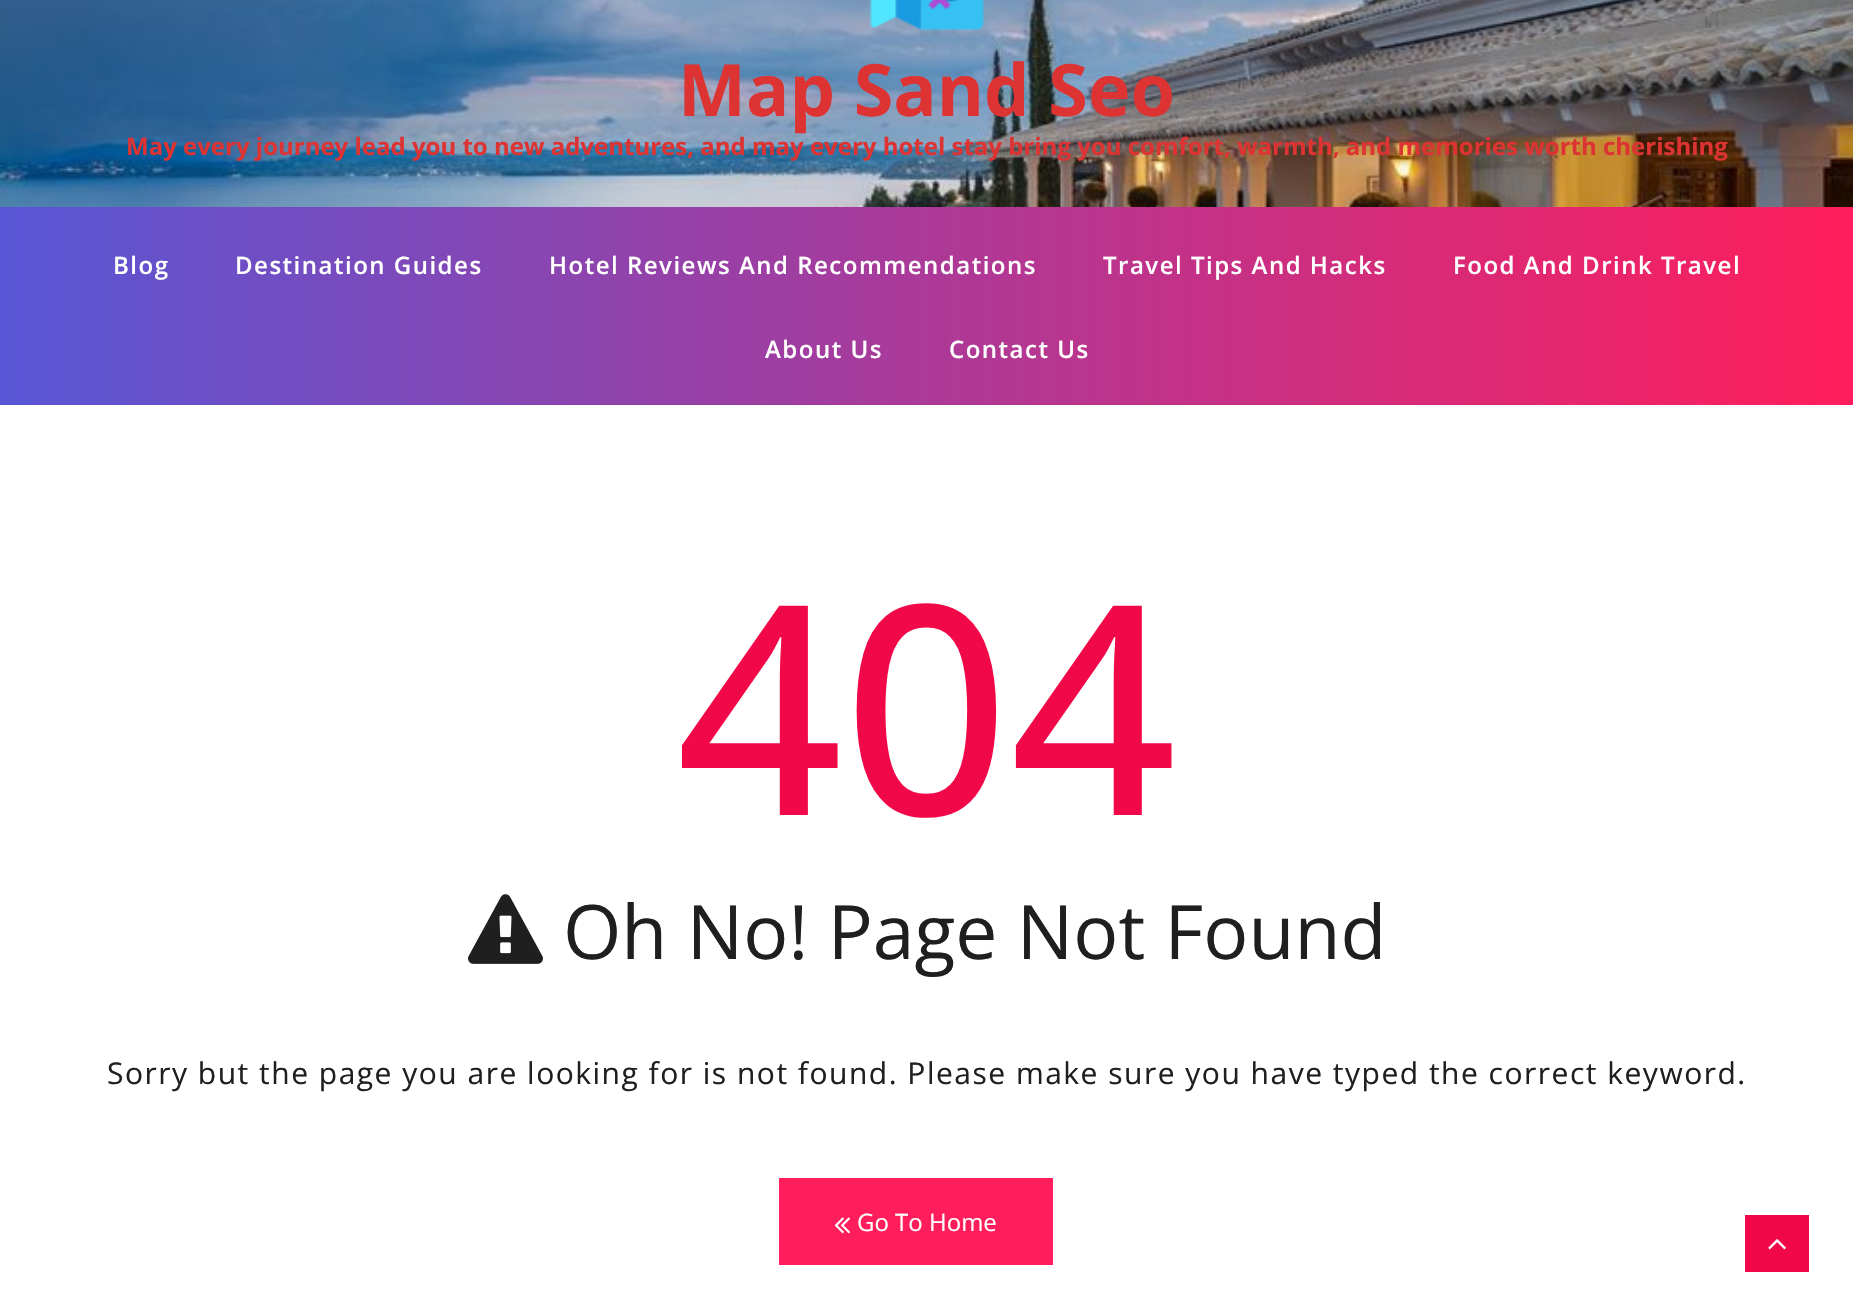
static SkFont makeFont(const char* family, int weight, float size, bool italic = false) {
  SkFontStyle style(weight, SkFontStyle::kNormal_Width,
    italic ? SkFontStyle::kItalic_Slant : SkFontStyle::kUpright_Slant);
  SkFont result(fontMgr->matchFamilyStyle(family, style), size);
  result.setSubpixel(true);
  return result;
}

static void text(SkCanvas* c, const char* s, float x, float y, const SkFont& font, SkColor color) {
  SkPaint ink(SkColor4f::FromColor(color));
  ink.setAntiAlias(true);
  c->drawString(s, x, y, font, ink);
}

static void spacedText(SkCanvas* c, const char* s, float x, float y, const SkFont& font, const SkPaint& ink, float letter, float word) {
  std::vector<SkGlyphID> glyphs(font.countText(s, strlen(s), SkTextEncoding::kUTF8));
  std::vector<float> xs(glyphs.size());
  font.textToGlyphs(s, strlen(s), SkTextEncoding::kUTF8, glyphs);
  font.getXPos(glyphs, xs, x);
  float extra = 0;
  for (size_t i = 0; i < glyphs.size(); i++) {
    xs[i] += extra;
    extra += letter + word * (glyphs[i] == font.unicharToGlyph(' '));
  }
  c->drawTextBlob(SkTextBlob::MakeFromPosHGlyphs(glyphs, xs, y, font), 0, 0, ink);
}

static void box(SkCanvas* c, float l, float t, float r, float b, SkColor color) {
  SkPaint ink(SkColor4f::FromColor(color));
  ink.setAntiAlias(true);
  c->drawRect(SkRect::MakeLTRB(l, t, r, b), ink);
}

static void picture(SkCanvas* c, const char* path, float l, float t, float r, float b) {
  auto image = SkImages::DeferredFromEncodedData(SkData::MakeFromFileName(path));
  c->drawImageRect(image, SkRect::MakeLTRB(l, t, r, b), SkSamplingOptions());
}

void draw(SkCanvas* c) {
  SkPaint paint;
  paint.setAntiAlias(true);
  c->clear(0xffffffff);
  picture(c, "img_01.png", 0, 0, 1853, 207);
  picture(c, "img_02.png", 869, 0, 985, 31);
  SkFont face1 = makeFont("Open Sans", 700, 72);
  text(c, "Map Sand Seo", 678, 116, face1, 0xffdd3333);
  SkFont face2 = makeFont("Open Sans", 700, 24);
  text(c, "May every journey lead you to new adventures, and may every hotel stay bring you comfort, warmth, and memories worth cherishing", 126, 155, face2, 0xffdd3333);
  {
    const SkColor colors[] = {0xff5856d5, 0xffff1d5b};
    const float stops[] = {0, 1};
    const SkPoint ends[] = {{0, 306}, {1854, 306}};
    paint.setShader(SkGradientShader::MakeLinear(ends, colors, stops, 2, SkTileMode::kClamp));
    paint.setAlpha(255);
  }
  c->drawRect(SkRect::MakeLTRB(0, 207, 1853, 405), paint);
  SkFont face3 = makeFont("Open Sans", 600, 24);
  paint.setShader(nullptr);
  paint.setColor(0xffffffff);
  spacedText(c, "Blog", 113, 274, face3, paint, 1.5f, 0);
  spacedText(c, "Destination Guides", 235, 274, face3, paint, 1.5f, 0);
  spacedText(c, "Hotel Reviews And Recommendations", 549, 274, face3, paint, 1.5f, 0);
  spacedText(c, "Travel Tips And Hacks", 1103, 274, face3, paint, 1.5f, 0);
  spacedText(c, "Food And Drink Travel", 1453, 274, face3, paint, 1.5f, 0);
  spacedText(c, "About Us", 765, 358, face3, paint, 1.5f, 0);
  spacedText(c, "Contact Us", 949, 358, face3, paint, 1.5f, 0);
  SkFont face4 = makeFont("Open Sans", 500, 292);
  text(c, "404", 676, 815, face4, 0xfff10849);
  picture(c, "img_03.png", 468, 894, 543, 964);
  SkFont face5 = makeFont("Open Sans", 400, 75);
  text(c, "Oh No! Page Not Found", 563, 959, face5, 0xff1f1f1f);
  SkFont face6 = makeFont("Open Sans", 400, 30);
  paint.setColor(0xff1f1f1f);
  spacedText(c, "Sorry but the page you are looking for is not found. Please make sure you have typed the correct keyword.", 107, 1084, face6, paint, 1.5f, 0);
  box(c, 779, 1178, 1053, 1265, 0xffff1d5b);
  picture(c, "img_04.png", 834, 1217, 850, 1234);
  SkFont face7 = makeFont("Open Sans", 400, 24);
  text(c, "Go To Home", 857, 1231, face7, 0xffffffff);
  box(c, 1745, 1215, 1809, 1272, 0xfff10849);
  picture(c, "img_05.png", 1768, 1239, 1786, 1250);
}
